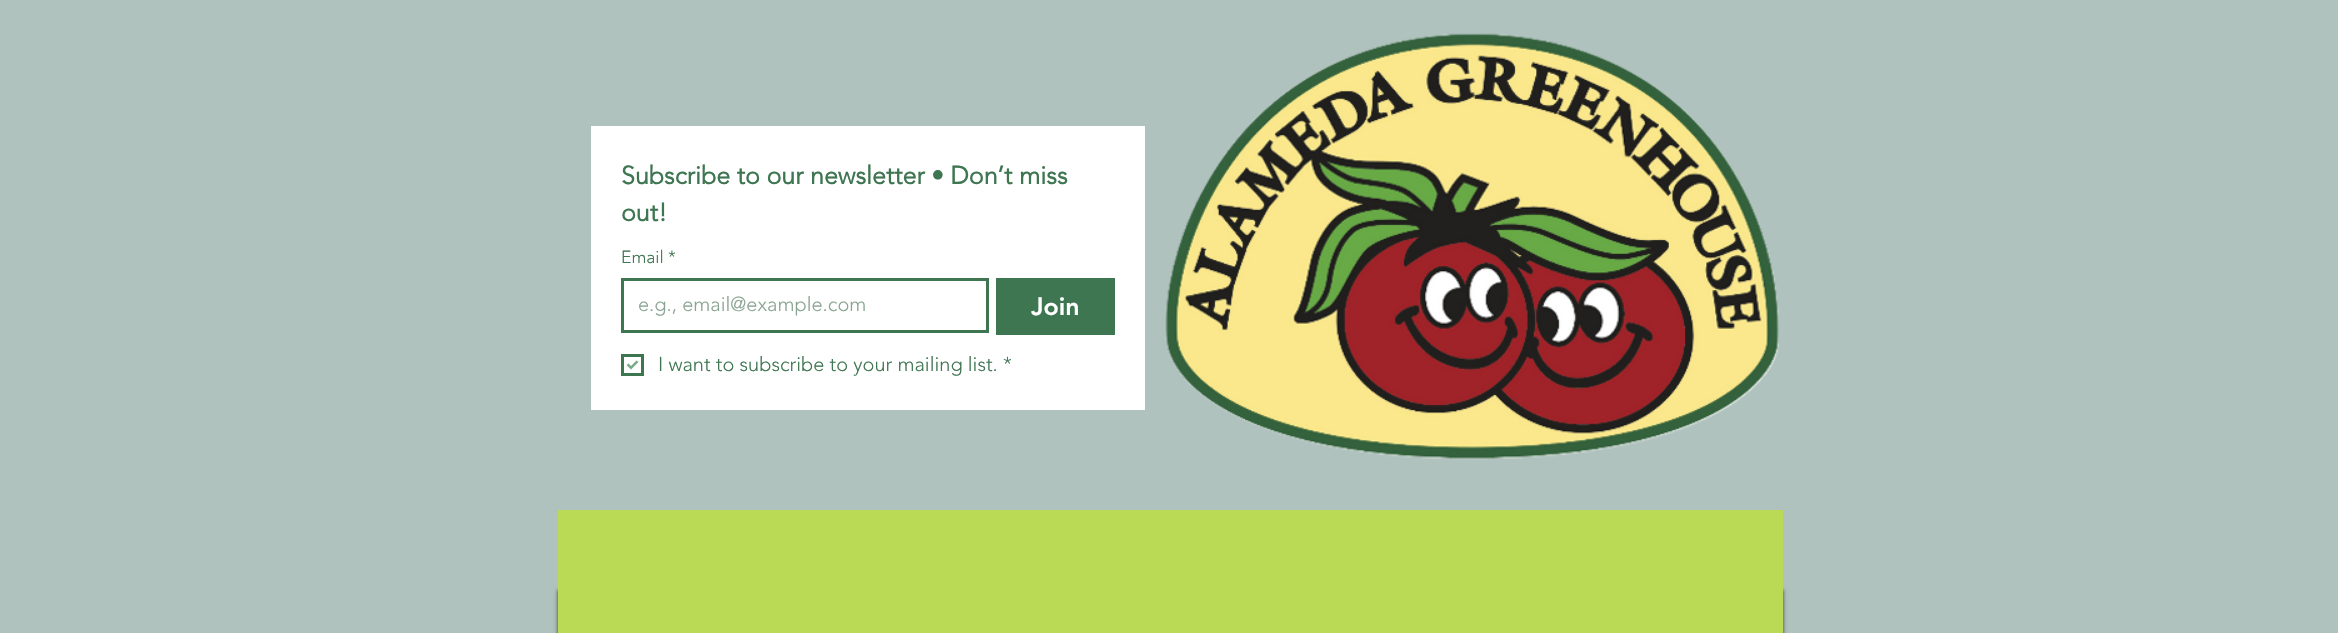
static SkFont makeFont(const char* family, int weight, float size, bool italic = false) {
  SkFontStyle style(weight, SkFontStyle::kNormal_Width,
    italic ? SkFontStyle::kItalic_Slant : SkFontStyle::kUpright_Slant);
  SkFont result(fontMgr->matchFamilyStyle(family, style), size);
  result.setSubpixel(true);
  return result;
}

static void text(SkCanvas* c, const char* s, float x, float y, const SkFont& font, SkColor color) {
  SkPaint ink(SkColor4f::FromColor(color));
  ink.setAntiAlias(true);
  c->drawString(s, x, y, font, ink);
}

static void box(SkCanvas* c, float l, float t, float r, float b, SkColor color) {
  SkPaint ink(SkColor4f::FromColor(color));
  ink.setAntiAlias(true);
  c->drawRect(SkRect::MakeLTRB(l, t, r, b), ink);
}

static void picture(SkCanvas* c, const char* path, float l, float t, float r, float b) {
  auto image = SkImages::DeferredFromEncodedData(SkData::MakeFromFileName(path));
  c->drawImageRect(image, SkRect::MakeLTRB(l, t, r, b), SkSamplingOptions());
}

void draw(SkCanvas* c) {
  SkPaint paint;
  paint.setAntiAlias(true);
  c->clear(0xffb0c2be);
  box(c, 591, 126, 1145, 410, 0xffffffff);
  SkFont face1 = makeFont("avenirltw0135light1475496", 700, 25);
  text(c, "Subscribe to our newsletter • Don’t miss", 621, 184, face1, 0xff3f7652);
  text(c, "out!", 621, 221, face1, 0xff3f7652);
  SkFont face2 = makeFont("avenirltw0135light1475496", 300, 17.5f);
  text(c, "Email", 621, 263, face2, 0xff3f7652);
  text(c, "*", 668, 263, face2, 0xff3f7652);
  paint.setStyle(SkPaint::kStroke_Style);
  paint.setStrokeWidth(3);
  paint.setColor(0xff3f7652);
  c->drawRect(SkRect::MakeLTRB(622.5f, 279.5f, 987.5f, 331.5f), paint);
  SkFont face3 = makeFont("avenirltw0135light1475496", 300, 20);
  text(c, "e.g., email@example.com", 638, 311, face3, 0xff8aa493);
  box(c, 996, 278, 1115, 335, 0xff3f7652);
  SkFont face4 = makeFont("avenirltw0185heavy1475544", 900, 25);
  text(c, "Join", 1031, 315, face4, 0xffffffff);
  c->drawRect(SkRect::MakeLTRB(622.5f, 355.5f, 642.5f, 374.5f), paint);
  picture(c, "img_01.png", 626, 360, 639, 370);
  text(c, "I want to subscribe to your mailing list. *", 658, 371, face3, 0xff3f7652);
  picture(c, "img_02.png", 1165, 33, 1779, 460);
  paint.setStyle(SkPaint::kFill_Style);
  paint.setColor(0xb3000000);
  paint.setMaskFilter(SkMaskFilter::MakeBlur(kNormal_SkBlurStyle, 2));
  c->drawRect(SkRect::MakeLTRB(558, 590, 1783, 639), paint);
  paint.setMaskFilter(nullptr);
  box(c, 558, 510, 1783, 633, 0xffbada55);
}
